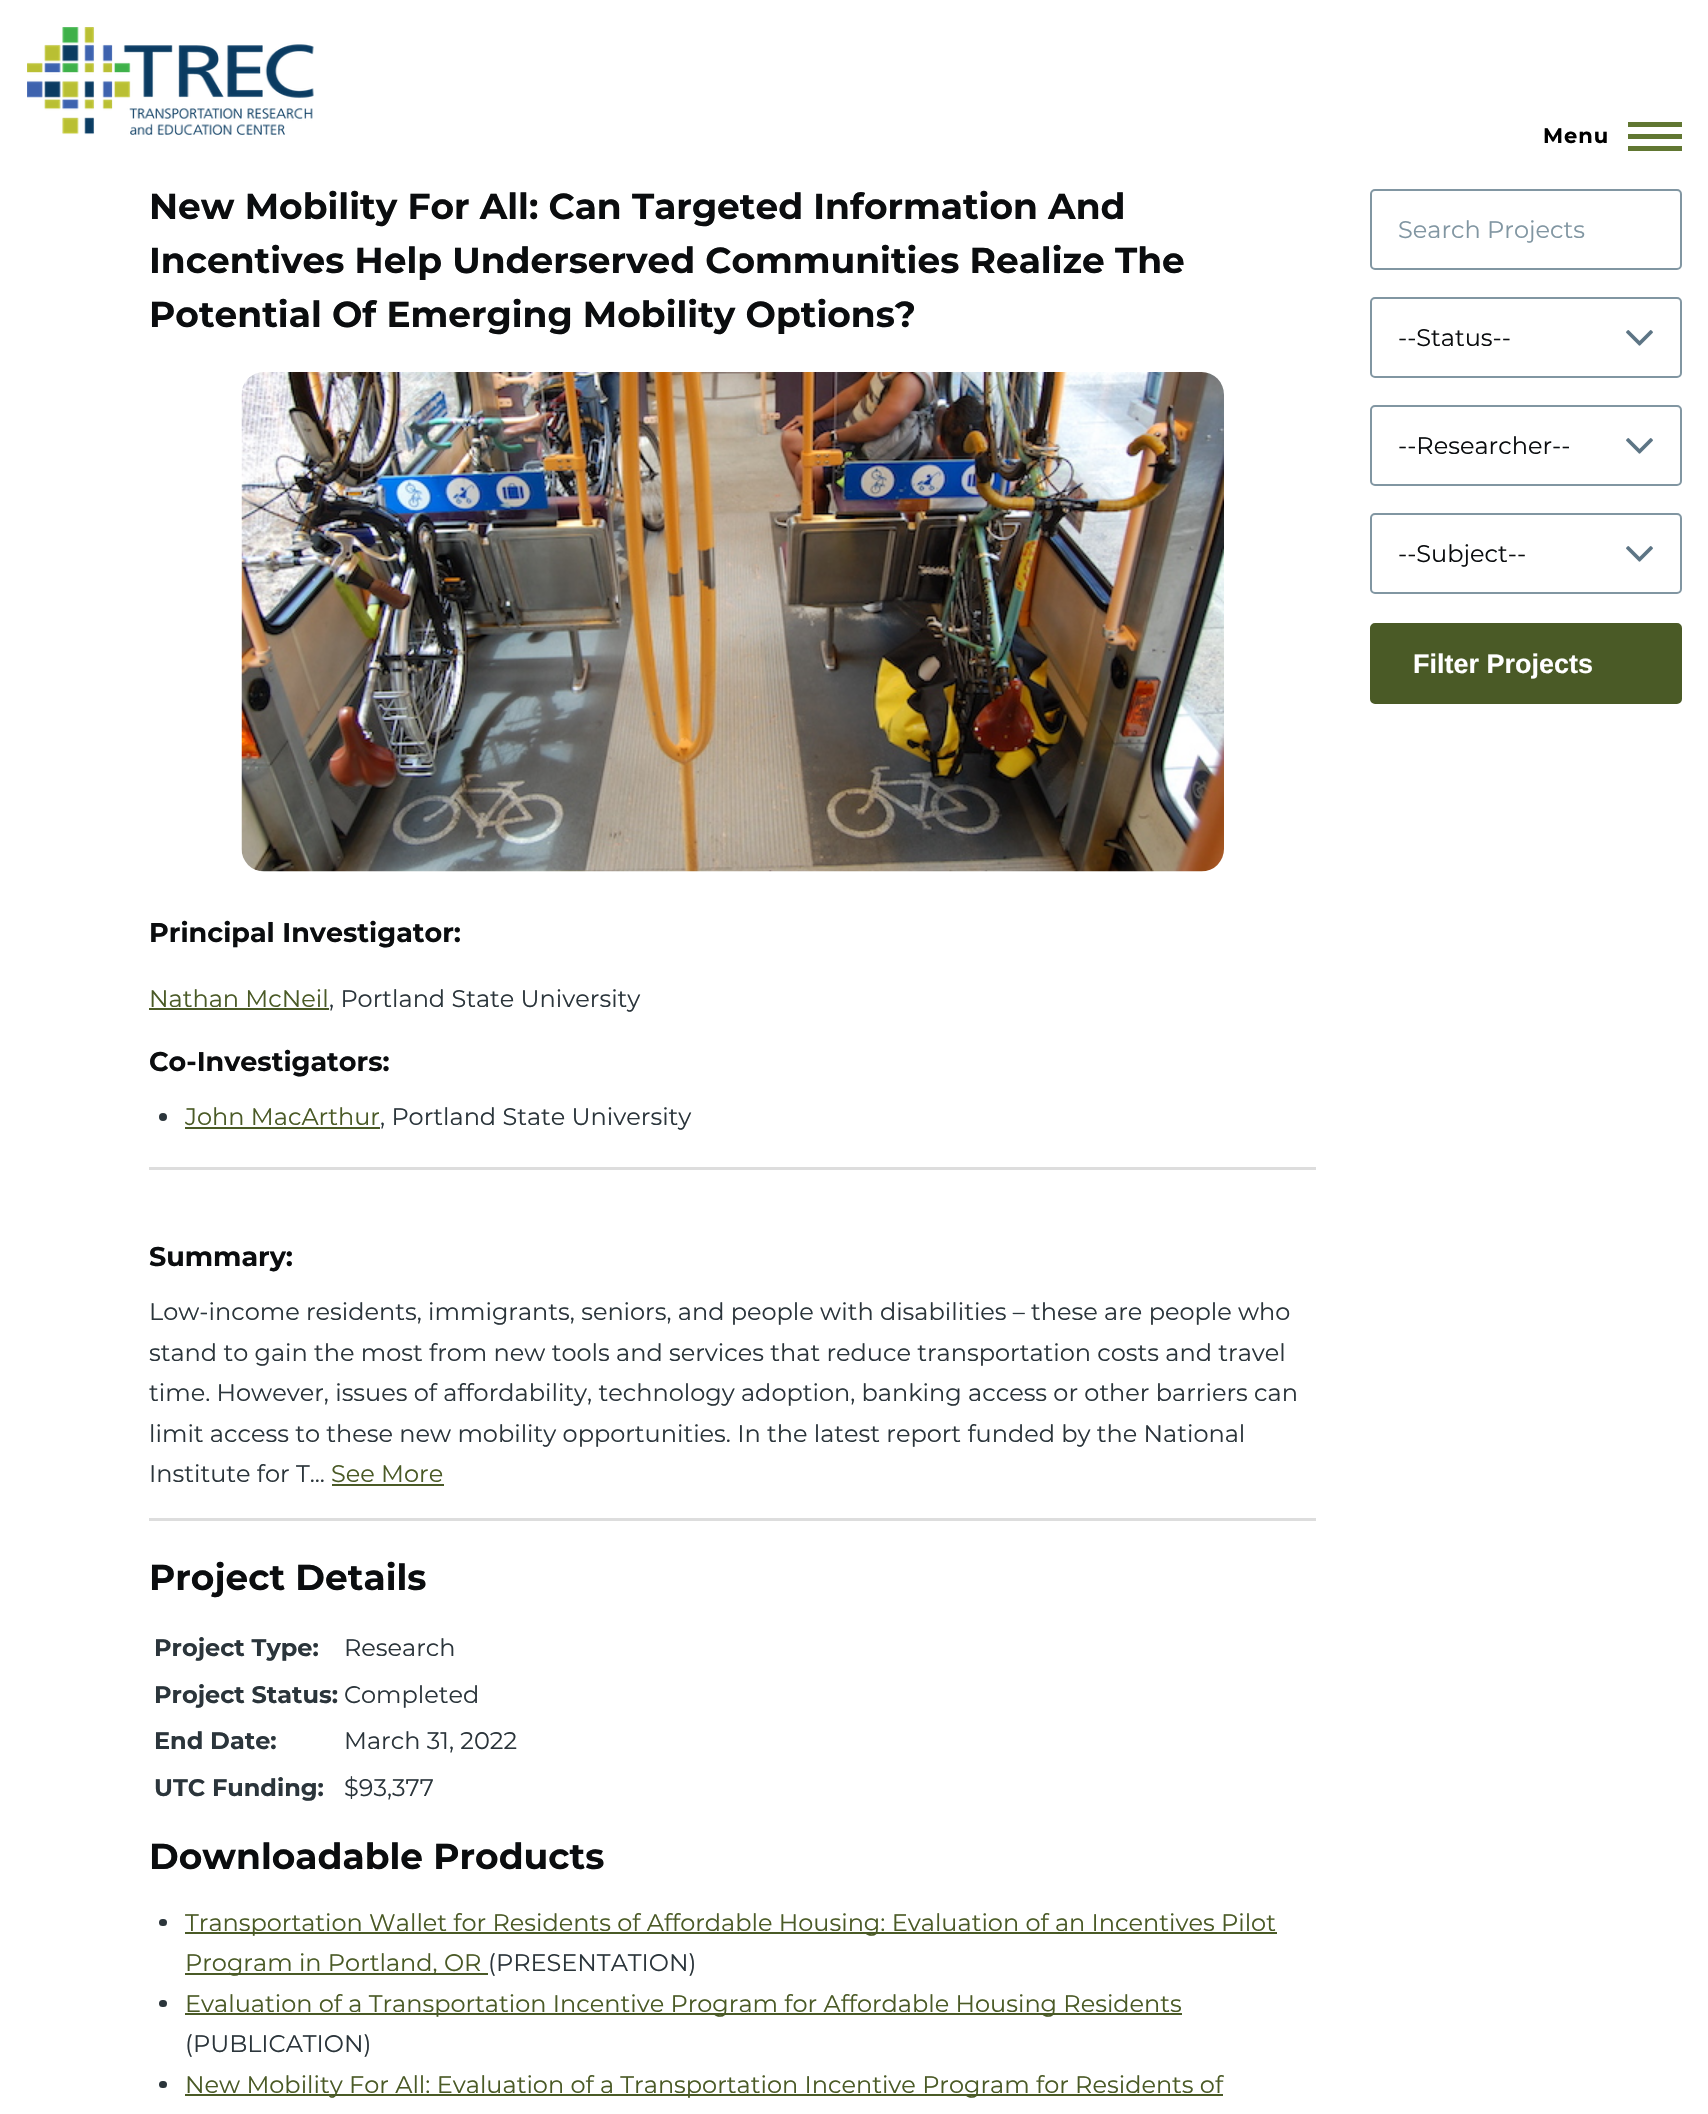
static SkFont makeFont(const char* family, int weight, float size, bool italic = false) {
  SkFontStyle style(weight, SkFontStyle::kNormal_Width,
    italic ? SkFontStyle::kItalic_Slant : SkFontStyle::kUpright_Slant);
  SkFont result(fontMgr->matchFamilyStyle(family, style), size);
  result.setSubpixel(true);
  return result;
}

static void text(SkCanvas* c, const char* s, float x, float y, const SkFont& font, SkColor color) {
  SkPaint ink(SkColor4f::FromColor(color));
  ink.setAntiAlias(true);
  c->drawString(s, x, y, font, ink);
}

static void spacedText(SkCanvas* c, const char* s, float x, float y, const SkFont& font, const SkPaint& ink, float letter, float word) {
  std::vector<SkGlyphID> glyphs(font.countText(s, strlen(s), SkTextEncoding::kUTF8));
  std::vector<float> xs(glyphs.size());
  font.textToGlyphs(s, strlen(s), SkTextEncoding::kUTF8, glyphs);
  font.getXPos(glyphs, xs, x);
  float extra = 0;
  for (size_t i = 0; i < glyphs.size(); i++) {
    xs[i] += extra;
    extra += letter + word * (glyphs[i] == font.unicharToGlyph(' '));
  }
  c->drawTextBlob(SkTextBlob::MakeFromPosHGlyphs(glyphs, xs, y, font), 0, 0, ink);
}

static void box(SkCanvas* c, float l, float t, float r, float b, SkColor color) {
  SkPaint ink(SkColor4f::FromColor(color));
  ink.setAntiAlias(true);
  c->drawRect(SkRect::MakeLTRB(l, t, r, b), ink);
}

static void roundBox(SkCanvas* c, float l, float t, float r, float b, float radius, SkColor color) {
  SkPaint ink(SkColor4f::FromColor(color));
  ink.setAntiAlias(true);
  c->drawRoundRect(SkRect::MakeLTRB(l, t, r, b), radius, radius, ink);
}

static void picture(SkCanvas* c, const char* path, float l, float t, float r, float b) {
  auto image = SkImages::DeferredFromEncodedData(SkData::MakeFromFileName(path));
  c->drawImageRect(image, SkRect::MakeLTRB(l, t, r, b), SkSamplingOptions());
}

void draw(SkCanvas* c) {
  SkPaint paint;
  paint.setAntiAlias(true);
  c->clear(0xffffffff);
  picture(c, "img_01.png", 27, 27, 314, 135);
  SkFont face1 = makeFont("Montserrat", 700, 21);
  paint.setColor(0xff000000);
  spacedText(c, "Menu", 1543, 143, face1, paint, 1, 0);
  box(c, 1628, 134, 1682, 139, 0xff617732);
  box(c, 1628, 122, 1682, 127, 0xff617732);
  box(c, 1628, 146, 1682, 151, 0xff617732);
  SkFont face2 = makeFont("Montserrat", 700, 36);
  text(c, "New Mobility For All: Can Targeted Information And", 149, 219, face2, 0xff0b0d0f);
  text(c, "Incentives Help Underserved Communities Realize The", 149, 273, face2, 0xff0b0d0f);
  text(c, "Potential Of Emerging Mobility Options?", 149, 327, face2, 0xff0b0d0f);
  picture(c, "img_02.png", 241, 372, 1224, 872);
  SkFont face3 = makeFont("Montserrat", 700, 27);
  text(c, "Principal Investigator:", 149, 942, face3, 0xff0b0d0f);
  SkFont face4 = makeFont("Montserrat", 400, 24);
  text(c, "Nathan McNeil", 149, 1007, face4, 0xff4a5a26);
  box(c, 149, 1008, 329, 1010, 0xff4a5a26);
  text(c, ", Portland State University", 329, 1007, face4, 0xff2b353b);
  text(c, "Co-Investigators:", 149, 1071, face3, 0xff0b0d0f);
  paint.setColor(0xff2b353b);
  c->drawCircle(163, 1117, 4, paint);
  text(c, "John MacArthur", 185, 1125, face4, 0xff4a5a26);
  box(c, 185, 1127, 380, 1129, 0xff4a5a26);
  text(c, ", Portland State University", 380, 1125, face4, 0xff2b353b);
  box(c, 149, 1167, 1316, 1170, 0xffdddddd);
  text(c, "Summary:", 149, 1266, face3, 0xff0b0d0f);
  text(c, "Low-income residents, immigrants, seniors, and people with disabilities – these are people who", 149, 1320, face4, 0xff2b353b);
  text(c, "stand to gain the most from new tools and services that reduce transportation costs and travel", 149, 1361, face4, 0xff2b353b);
  text(c, "time. However, issues of affordability, technology adoption, banking access or other barriers can", 149, 1401, face4, 0xff2b353b);
  text(c, "limit access to these new mobility opportunities. In the latest report funded by the National", 149, 1442, face4, 0xff2b353b);
  text(c, "Institute for T...", 149, 1482, face4, 0xff2b353b);
  text(c, "See More", 331, 1482, face4, 0xff4a5a26);
  box(c, 332, 1484, 444, 1486, 0xff4a5a26);
  box(c, 149, 1518, 1316, 1521, 0xffdddddd);
  text(c, "Project Details", 149, 1590, face2, 0xff0b0d0f);
  SkFont face5 = makeFont("Montserrat", 700, 24);
  text(c, "Project Type:", 154, 1656, face5, 0xff2b353b);
  text(c, "Research", 344, 1656, face4, 0xff2b353b);
  text(c, "Project Status:", 154, 1703, face5, 0xff2b353b);
  text(c, "Completed", 344, 1703, face4, 0xff2b353b);
  text(c, "End Date:", 154, 1749, face5, 0xff2b353b);
  text(c, "March 31, 2022", 344, 1749, face4, 0xff2b353b);
  text(c, "UTC Funding:", 154, 1796, face5, 0xff2b353b);
  text(c, "$93,377", 344, 1796, face4, 0xff2b353b);
  text(c, "Downloadable Products", 149, 1869, face2, 0xff0b0d0f);
  roundBox(c, 159, 1919, 167, 1926, 3.5f, 0xff2b353b);
  box(c, 185, 1932, 1277, 1934, 0xff4a5a26);
  text(c, "Transportation Wallet for Residents of Affordable Housing: Evaluation of an Incentives Pilot", 185, 1931, face4, 0xff4a5a26);
  box(c, 185, 1973, 488, 1975, 0xff4a5a26);
  text(c, "Program in Portland, OR", 185, 1971, face4, 0xff4a5a26);
  text(c, "(PRESENTATION)", 488, 1971, face4, 0xff2b353b);
  roundBox(c, 159, 2000, 167, 2007, 3.5f, 0xff2b353b);
  box(c, 185, 2013, 1182, 2015, 0xff4a5a26);
  text(c, "Evaluation of a Transportation Incentive Program for Affordable Housing Residents", 185, 2012, face4, 0xff4a5a26);
  text(c, "(PUBLICATION)", 185, 2052, face4, 0xff2b353b);
  roundBox(c, 159, 2081, 167, 2088, 3.5f, 0xff2b353b);
  box(c, 185, 2094, 1223, 2096, 0xff4a5a26);
  text(c, "New Mobility For All: Evaluation of a Transportation Incentive Program for Residents of", 185, 2093, face4, 0xff4a5a26);
  paint.setStyle(SkPaint::kStroke_Style);
  paint.setStrokeWidth(2);
  paint.setColor(0xff8196a2);
  c->drawRoundRect(SkRect::MakeLTRB(1371, 190, 1681, 269), 4, 4, paint);
  text(c, "Search Projects", 1398, 238, face4, 0xff8196a2);
  picture(c, "img_03.png", 1626, 330, 1653, 346);
  c->drawRoundRect(SkRect::MakeLTRB(1371, 298, 1681, 377), 4, 4, paint);
  text(c, "--Status--", 1398, 346, face4, 0xff0b0d0f);
  picture(c, "img_03.png", 1626, 438, 1653, 454);
  c->drawRoundRect(SkRect::MakeLTRB(1371, 406, 1681, 485), 4, 4, paint);
  text(c, "--Researcher--", 1398, 454, face4, 0xff0b0d0f);
  picture(c, "img_03.png", 1626, 546, 1653, 562);
  c->drawRoundRect(SkRect::MakeLTRB(1371, 514, 1681, 593), 4, 4, paint);
  text(c, "--Subject--", 1398, 562, face4, 0xff0b0d0f);
  paint.setStyle(SkPaint::kFill_Style);
  paint.setColor(0xff4a5a26);
  c->drawRoundRect(SkRect::MakeLTRB(1371.5f, 624.5f, 1680.5f, 702.5f), 3.5f, 3.5f, paint);
  paint.setStyle(SkPaint::kStroke_Style);
  paint.setStrokeWidth(3);
  c->drawRoundRect(SkRect::MakeLTRB(1371.5f, 624.5f, 1680.5f, 702.5f), 3.5f, 3.5f, paint);
  SkFont face6 = makeFont("Liberation Sans", 700, 27);
  text(c, "Filter Projects", 1413, 673, face6, 0xffffffff);
}
